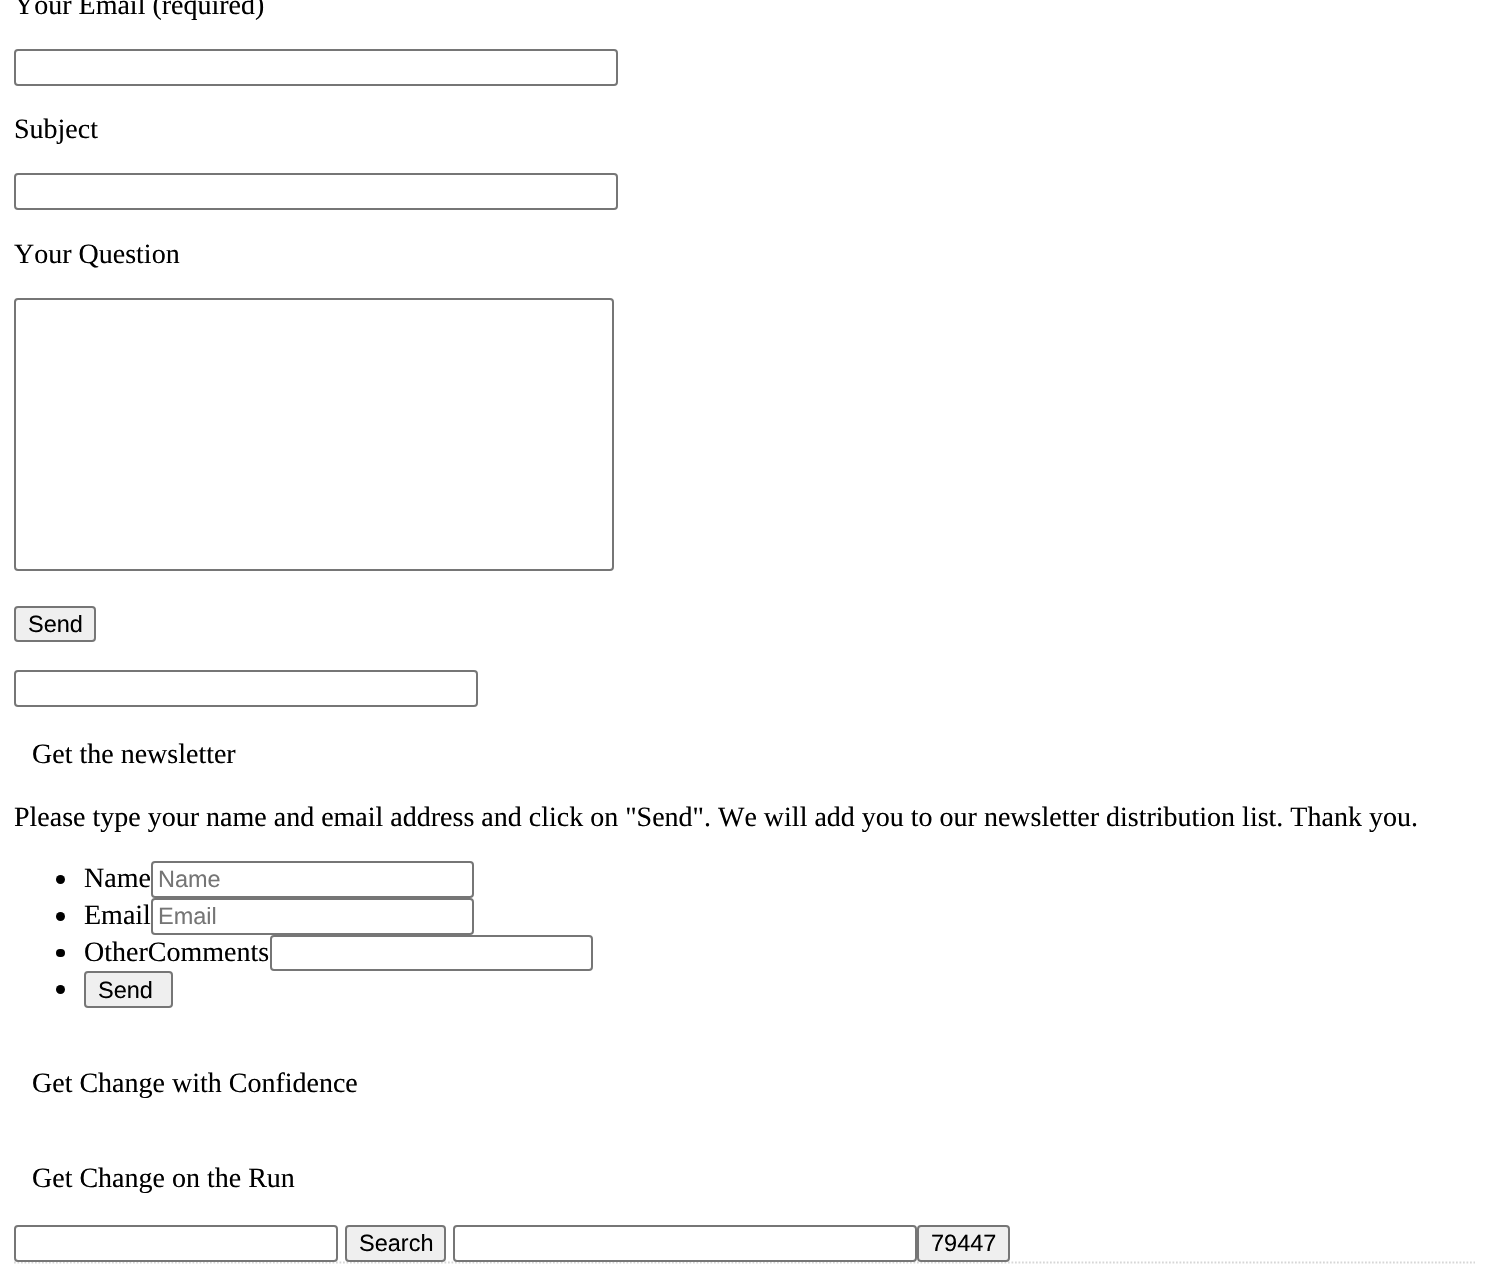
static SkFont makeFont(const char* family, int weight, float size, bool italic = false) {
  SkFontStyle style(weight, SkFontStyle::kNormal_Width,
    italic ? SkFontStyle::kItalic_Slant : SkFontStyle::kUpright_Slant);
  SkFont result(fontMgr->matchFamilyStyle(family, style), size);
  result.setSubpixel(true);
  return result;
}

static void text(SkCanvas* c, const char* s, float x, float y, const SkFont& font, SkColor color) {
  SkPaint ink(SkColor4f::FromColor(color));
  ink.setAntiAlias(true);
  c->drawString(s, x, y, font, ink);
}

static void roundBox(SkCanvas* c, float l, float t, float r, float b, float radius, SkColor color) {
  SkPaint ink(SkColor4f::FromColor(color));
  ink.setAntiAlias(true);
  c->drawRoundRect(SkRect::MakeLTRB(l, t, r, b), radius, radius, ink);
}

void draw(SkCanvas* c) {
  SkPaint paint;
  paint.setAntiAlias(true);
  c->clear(0xffffffff);
  SkFont face1 = makeFont("Liberation Serif", 400, 28);
  text(c, "Your Email (required)", 14, 14, face1, 0xff000000);
  paint.setStyle(SkPaint::kStroke_Style);
  paint.setStrokeWidth(2);
  paint.setColor(0xff767676);
  c->drawRoundRect(SkRect::MakeLTRB(15, 50, 617, 85), 3, 3, paint);
  text(c, "Subject", 14, 138, face1, 0xff000000);
  c->drawRoundRect(SkRect::MakeLTRB(15, 174, 617, 209), 3, 3, paint);
  text(c, "Your Question", 14, 263, face1, 0xff000000);
  c->drawRoundRect(SkRect::MakeLTRB(15, 299, 613, 570), 3, 3, paint);
  paint.setStyle(SkPaint::kFill_Style);
  paint.setColor(0xffefefef);
  c->drawRoundRect(SkRect::MakeLTRB(15, 607, 95, 641), 3, 3, paint);
  paint.setStyle(SkPaint::kStroke_Style);
  paint.setColor(0xff767676);
  c->drawRoundRect(SkRect::MakeLTRB(15, 607, 95, 641), 3, 3, paint);
  SkFont face2 = makeFont("Liberation Sans", 400, 23.5f);
  text(c, "Send", 28, 632, face2, 0xff000000);
  c->drawRoundRect(SkRect::MakeLTRB(15, 671, 477, 706), 3, 3, paint);
  text(c, "Get the newsletter", 32, 763, face1, 0xff000000);
  text(c, "Please type your name and email address and click on \"Send\". We will add you to our newsletter distribution list. Thank you.", 14, 826, face1, 0xff000000);
  paint.setStyle(SkPaint::kFill_Style);
  paint.setColor(0xff000000);
  c->drawCircle(60.5f, 879.5f, 4.5f, paint);
  text(c, "Name", 84, 887, face1, 0xff000000);
  paint.setStyle(SkPaint::kStroke_Style);
  paint.setColor(0xff767676);
  c->drawRoundRect(SkRect::MakeLTRB(152, 862, 473, 897), 3, 3, paint);
  text(c, "Name", 158, 887, face2, 0xff757575);
  paint.setStyle(SkPaint::kFill_Style);
  paint.setColor(0xff000000);
  c->drawCircle(60.5f, 916.5f, 4.5f, paint);
  text(c, "Email", 84, 924, face1, 0xff000000);
  paint.setStyle(SkPaint::kStroke_Style);
  paint.setColor(0xff767676);
  c->drawRoundRect(SkRect::MakeLTRB(152, 899, 473, 934), 3, 3, paint);
  text(c, "Email", 158, 924, face2, 0xff757575);
  roundBox(c, 56, 949, 65, 957, 4, 0xff000000);
  text(c, "OtherComments", 84, 961, face1, 0xff000000);
  c->drawRoundRect(SkRect::MakeLTRB(271, 936, 592, 970), 3, 3, paint);
  paint.setStyle(SkPaint::kFill_Style);
  paint.setColor(0xff000000);
  c->drawCircle(60.5f, 989.5f, 4.5f, paint);
  paint.setColor(0xffefefef);
  c->drawRoundRect(SkRect::MakeLTRB(85, 972, 172, 1007), 3, 3, paint);
  paint.setStyle(SkPaint::kStroke_Style);
  paint.setColor(0xff767676);
  c->drawRoundRect(SkRect::MakeLTRB(85, 972, 172, 1007), 3, 3, paint);
  text(c, "Send", 98, 998, face2, 0xff000000);
  text(c, "Get Change with Confidence", 32, 1092, face1, 0xff000000);
  text(c, "Get Change on the Run", 32, 1187, face1, 0xff000000);
  paint.setStrokeWidth(1.8f);
  paint.setColor(0xffd7d7d7);
  paint.setPathEffect(SkDashPathEffect::Make({{1.75f, 1.75f}}, 0));
  c->drawPath(SkPathBuilder().moveTo(14, 1262.5f).lineTo(1475, 1262.5f).detach(), paint);
  paint.setPathEffect(nullptr);
  paint.setStyle(SkPaint::kFill_Style);
  paint.setColor(0xffffffff);
  c->drawRoundRect(SkRect::MakeLTRB(15, 1226, 337, 1261), 3, 3, paint);
  paint.setStyle(SkPaint::kStroke_Style);
  paint.setStrokeWidth(2);
  paint.setColor(0xff767676);
  c->drawRoundRect(SkRect::MakeLTRB(15, 1226, 337, 1261), 3, 3, paint);
  paint.setStyle(SkPaint::kFill_Style);
  paint.setColor(0xffefefef);
  c->drawRoundRect(SkRect::MakeLTRB(346, 1226, 445, 1261), 3, 3, paint);
  paint.setStyle(SkPaint::kStroke_Style);
  paint.setColor(0xff767676);
  c->drawRoundRect(SkRect::MakeLTRB(346, 1226, 445, 1261), 3, 3, paint);
  text(c, "Search", 359, 1251, face2, 0xff000000);
  paint.setStyle(SkPaint::kFill_Style);
  paint.setColor(0xffffffff);
  c->drawRoundRect(SkRect::MakeLTRB(454, 1226, 916, 1261), 3, 3, paint);
  paint.setStyle(SkPaint::kStroke_Style);
  paint.setColor(0xff767676);
  c->drawRoundRect(SkRect::MakeLTRB(454, 1226, 916, 1261), 3, 3, paint);
  paint.setStyle(SkPaint::kFill_Style);
  paint.setColor(0xffefefef);
  c->drawRoundRect(SkRect::MakeLTRB(918, 1226, 1009, 1261), 3, 3, paint);
  paint.setStyle(SkPaint::kStroke_Style);
  paint.setColor(0xff767676);
  c->drawRoundRect(SkRect::MakeLTRB(918, 1226, 1009, 1261), 3, 3, paint);
  text(c, "79447", 931, 1251, face2, 0xff000000);
}
